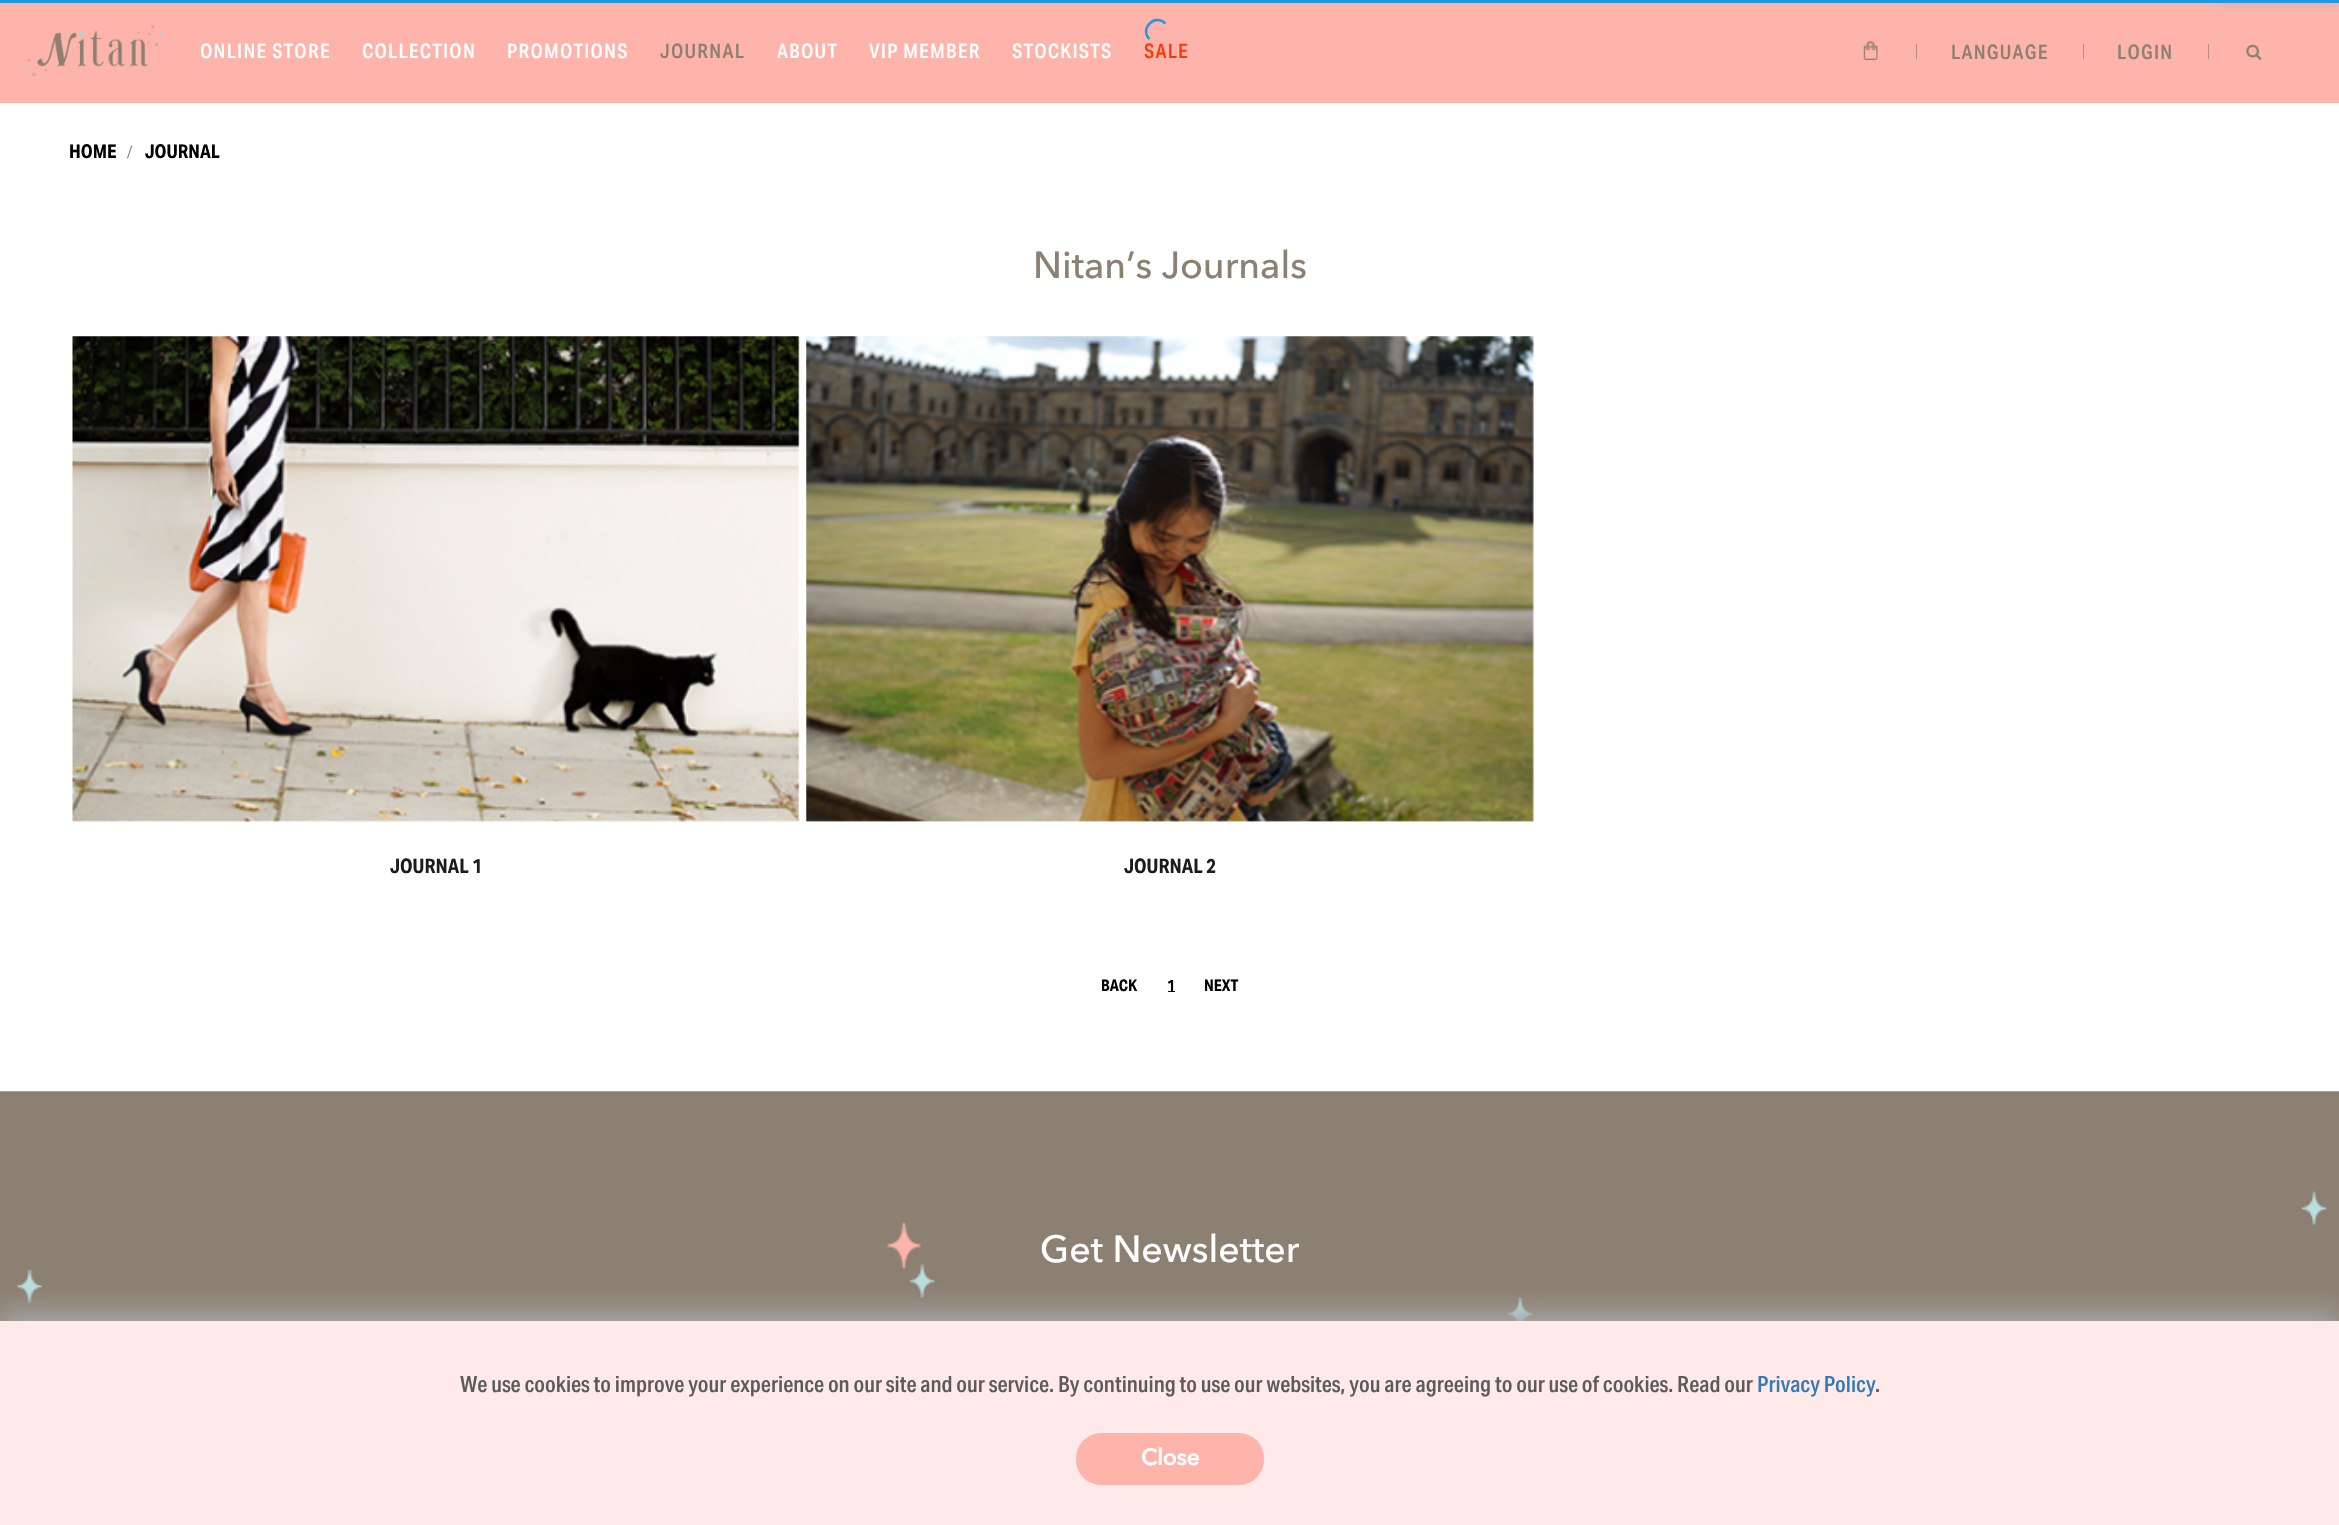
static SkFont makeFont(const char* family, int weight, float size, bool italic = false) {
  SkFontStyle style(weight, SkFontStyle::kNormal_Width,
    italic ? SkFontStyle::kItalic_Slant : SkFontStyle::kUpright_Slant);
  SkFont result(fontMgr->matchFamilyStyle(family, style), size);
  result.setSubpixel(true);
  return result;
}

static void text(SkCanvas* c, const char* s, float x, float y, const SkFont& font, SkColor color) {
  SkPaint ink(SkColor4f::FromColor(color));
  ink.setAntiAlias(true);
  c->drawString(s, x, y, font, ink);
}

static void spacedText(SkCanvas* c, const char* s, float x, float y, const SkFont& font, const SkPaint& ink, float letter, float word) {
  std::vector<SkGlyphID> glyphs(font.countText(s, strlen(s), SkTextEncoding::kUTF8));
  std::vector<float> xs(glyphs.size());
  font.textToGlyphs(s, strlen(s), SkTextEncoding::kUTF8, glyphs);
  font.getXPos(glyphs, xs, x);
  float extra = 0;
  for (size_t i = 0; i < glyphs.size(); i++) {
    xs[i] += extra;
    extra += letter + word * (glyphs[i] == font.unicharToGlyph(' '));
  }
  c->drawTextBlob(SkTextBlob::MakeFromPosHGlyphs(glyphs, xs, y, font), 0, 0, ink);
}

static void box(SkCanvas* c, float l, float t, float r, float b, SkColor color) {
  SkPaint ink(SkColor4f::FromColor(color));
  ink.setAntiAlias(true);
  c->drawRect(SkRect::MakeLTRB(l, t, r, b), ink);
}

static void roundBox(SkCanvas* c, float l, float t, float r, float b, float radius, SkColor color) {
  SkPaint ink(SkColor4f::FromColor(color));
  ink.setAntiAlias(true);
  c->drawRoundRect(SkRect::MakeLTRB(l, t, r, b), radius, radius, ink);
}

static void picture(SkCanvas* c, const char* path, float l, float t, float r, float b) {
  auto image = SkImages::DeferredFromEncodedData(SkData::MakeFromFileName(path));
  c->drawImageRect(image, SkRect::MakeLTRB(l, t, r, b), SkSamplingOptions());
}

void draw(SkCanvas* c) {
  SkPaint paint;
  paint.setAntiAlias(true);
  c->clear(0xffffffff);
  box(c, 0, 0, 2339, 3, 0xff2299dd);
  box(c, 0, 3, 2339, 103, 0xffffb4ab);
  paint.setColor(0xff2299dd);
  paint.setMaskFilter(SkMaskFilter::MakeBlur(kNormal_SkBlurStyle, 6.5f));
  c->drawRect(SkRect::MakeLTRB(2215, -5, 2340, -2), paint);
  paint.setMaskFilter(nullptr);
  paint.setStyle(SkPaint::kStroke_Style);
  paint.setStrokeWidth(2.5f);
  c->drawPath(SkPathBuilder().moveTo(1149.5f, 39).cubicTo(1139, 29, 1155, 13, 1165.5f, 23.5f).detach(), paint);
  picture(c, "img_01.png", 25, 25, 163, 76);
  SkFont face1 = makeFont("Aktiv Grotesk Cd", 500, 20);
  paint.setStyle(SkPaint::kFill_Style);
  paint.setColor(0xffffffff);
  spacedText(c, "ONLINE STORE", 200, 58, face1, paint, 1.25f, 0);
  spacedText(c, "COLLECTION", 362, 58, face1, paint, 1.25f, 0);
  spacedText(c, "PROMOTIONS", 507, 58, face1, paint, 1.25f, 0);
  paint.setColor(0xff8c8072);
  spacedText(c, "JOURNAL", 660, 58, face1, paint, 1.25f, 0);
  paint.setColor(0xffffffff);
  spacedText(c, "ABOUT", 777, 58, face1, paint, 1.25f, 0);
  spacedText(c, "VIP MEMBER", 869, 58, face1, paint, 1.25f, 0);
  spacedText(c, "STOCKISTS", 1012, 58, face1, paint, 1.25f, 0);
  paint.setColor(0xffff380a);
  spacedText(c, "SALE", 1144, 58, face1, paint, 1.25f, 0);
  picture(c, "img_02.png", 1863, 41, 1878, 60);
  box(c, 1916, 44, 1917, 59, 0xffb39285);
  paint.setColor(0xff8c8072);
  spacedText(c, "LANGUAGE", 1951, 59, face1, paint, 1.25f, 0);
  box(c, 2083, 44, 2084, 59, 0xffb39285);
  spacedText(c, "LOGIN", 2117, 59, face1, paint, 1.25f, 0);
  box(c, 2208, 44, 2209, 59, 0xffb39285);
  picture(c, "img_03.png", 2246, 44, 2262, 60);
  SkFont face2 = makeFont("Aktiv Grotesk Cd", 700, 19);
  text(c, "HOME", 69, 158, face2, 0xff000000);
  SkFont face3 = makeFont("Liberation Serif", 400, 19);
  text(c, "/", 127, 158, face3, 0xff6e6e6e);
  text(c, "JOURNAL", 145, 158, face2, 0xff000000);
  SkFont face4 = makeFont("Avenir Next", 500, 37.5f);
  text(c, "Nitan’s Journals", 1033, 278, face4, 0xff8c8072);
  picture(c, "img_04.png", 72, 336, 800, 823);
  SkFont face5 = makeFont("Aktiv Grotesk Cd", 700, 20);
  text(c, "JOURNAL 1", 390, 873, face5, 0xff1c1c1c);
  picture(c, "img_05.png", 806, 336, 1534, 822);
  text(c, "JOURNAL 2", 1124, 873, face5, 0xff1c1c1c);
  SkFont face6 = makeFont("Aktiv Grotesk Cd", 700, 16);
  text(c, "BACK", 1101, 991, face6, 0xff000000);
  text(c, "1", 1167, 991, face6, 0xff000000);
  box(c, 1168, 991, 1175, 992, 0xff000000);
  text(c, "NEXT", 1204, 991, face6, 0xff000000);
  picture(c, "img_06.png", 0, 1091, 2339, 1321);
  text(c, "Get Newsletter", 1040, 1262, face4, 0xffffffff);
  paint.setColor(0xffa7a7a7);
  paint.setMaskFilter(SkMaskFilter::MakeBlur(kNormal_SkBlurStyle, 12.5f));
  c->drawRect(SkRect::MakeLTRB(-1, 1311, 2339, 1515), paint);
  paint.setMaskFilter(nullptr);
  box(c, 0, 1321, 2339, 1525, 0xffffe9e9);
  SkFont face7 = makeFont("Aktiv Grotesk Cd", 500, 22.5f);
  text(c, "We use cookies to improve your experience on our site and our service. By continuing to use our websites, you are agreeing to our use of cookies. Read our", 460, 1392, face7, 0xff5b5b5b);
  text(c, "Privacy Policy", 1757, 1392, face7, 0xff337ab7);
  text(c, ".", 1875, 1392, face7, 0xff5b5b5b);
  roundBox(c, 1076, 1433, 1264, 1485, 25, 0xffffb4ab);
  SkFont face8 = makeFont("Avenir Next", 700, 22.5f);
  text(c, "Close", 1141, 1465, face8, 0xffffffff);
}
